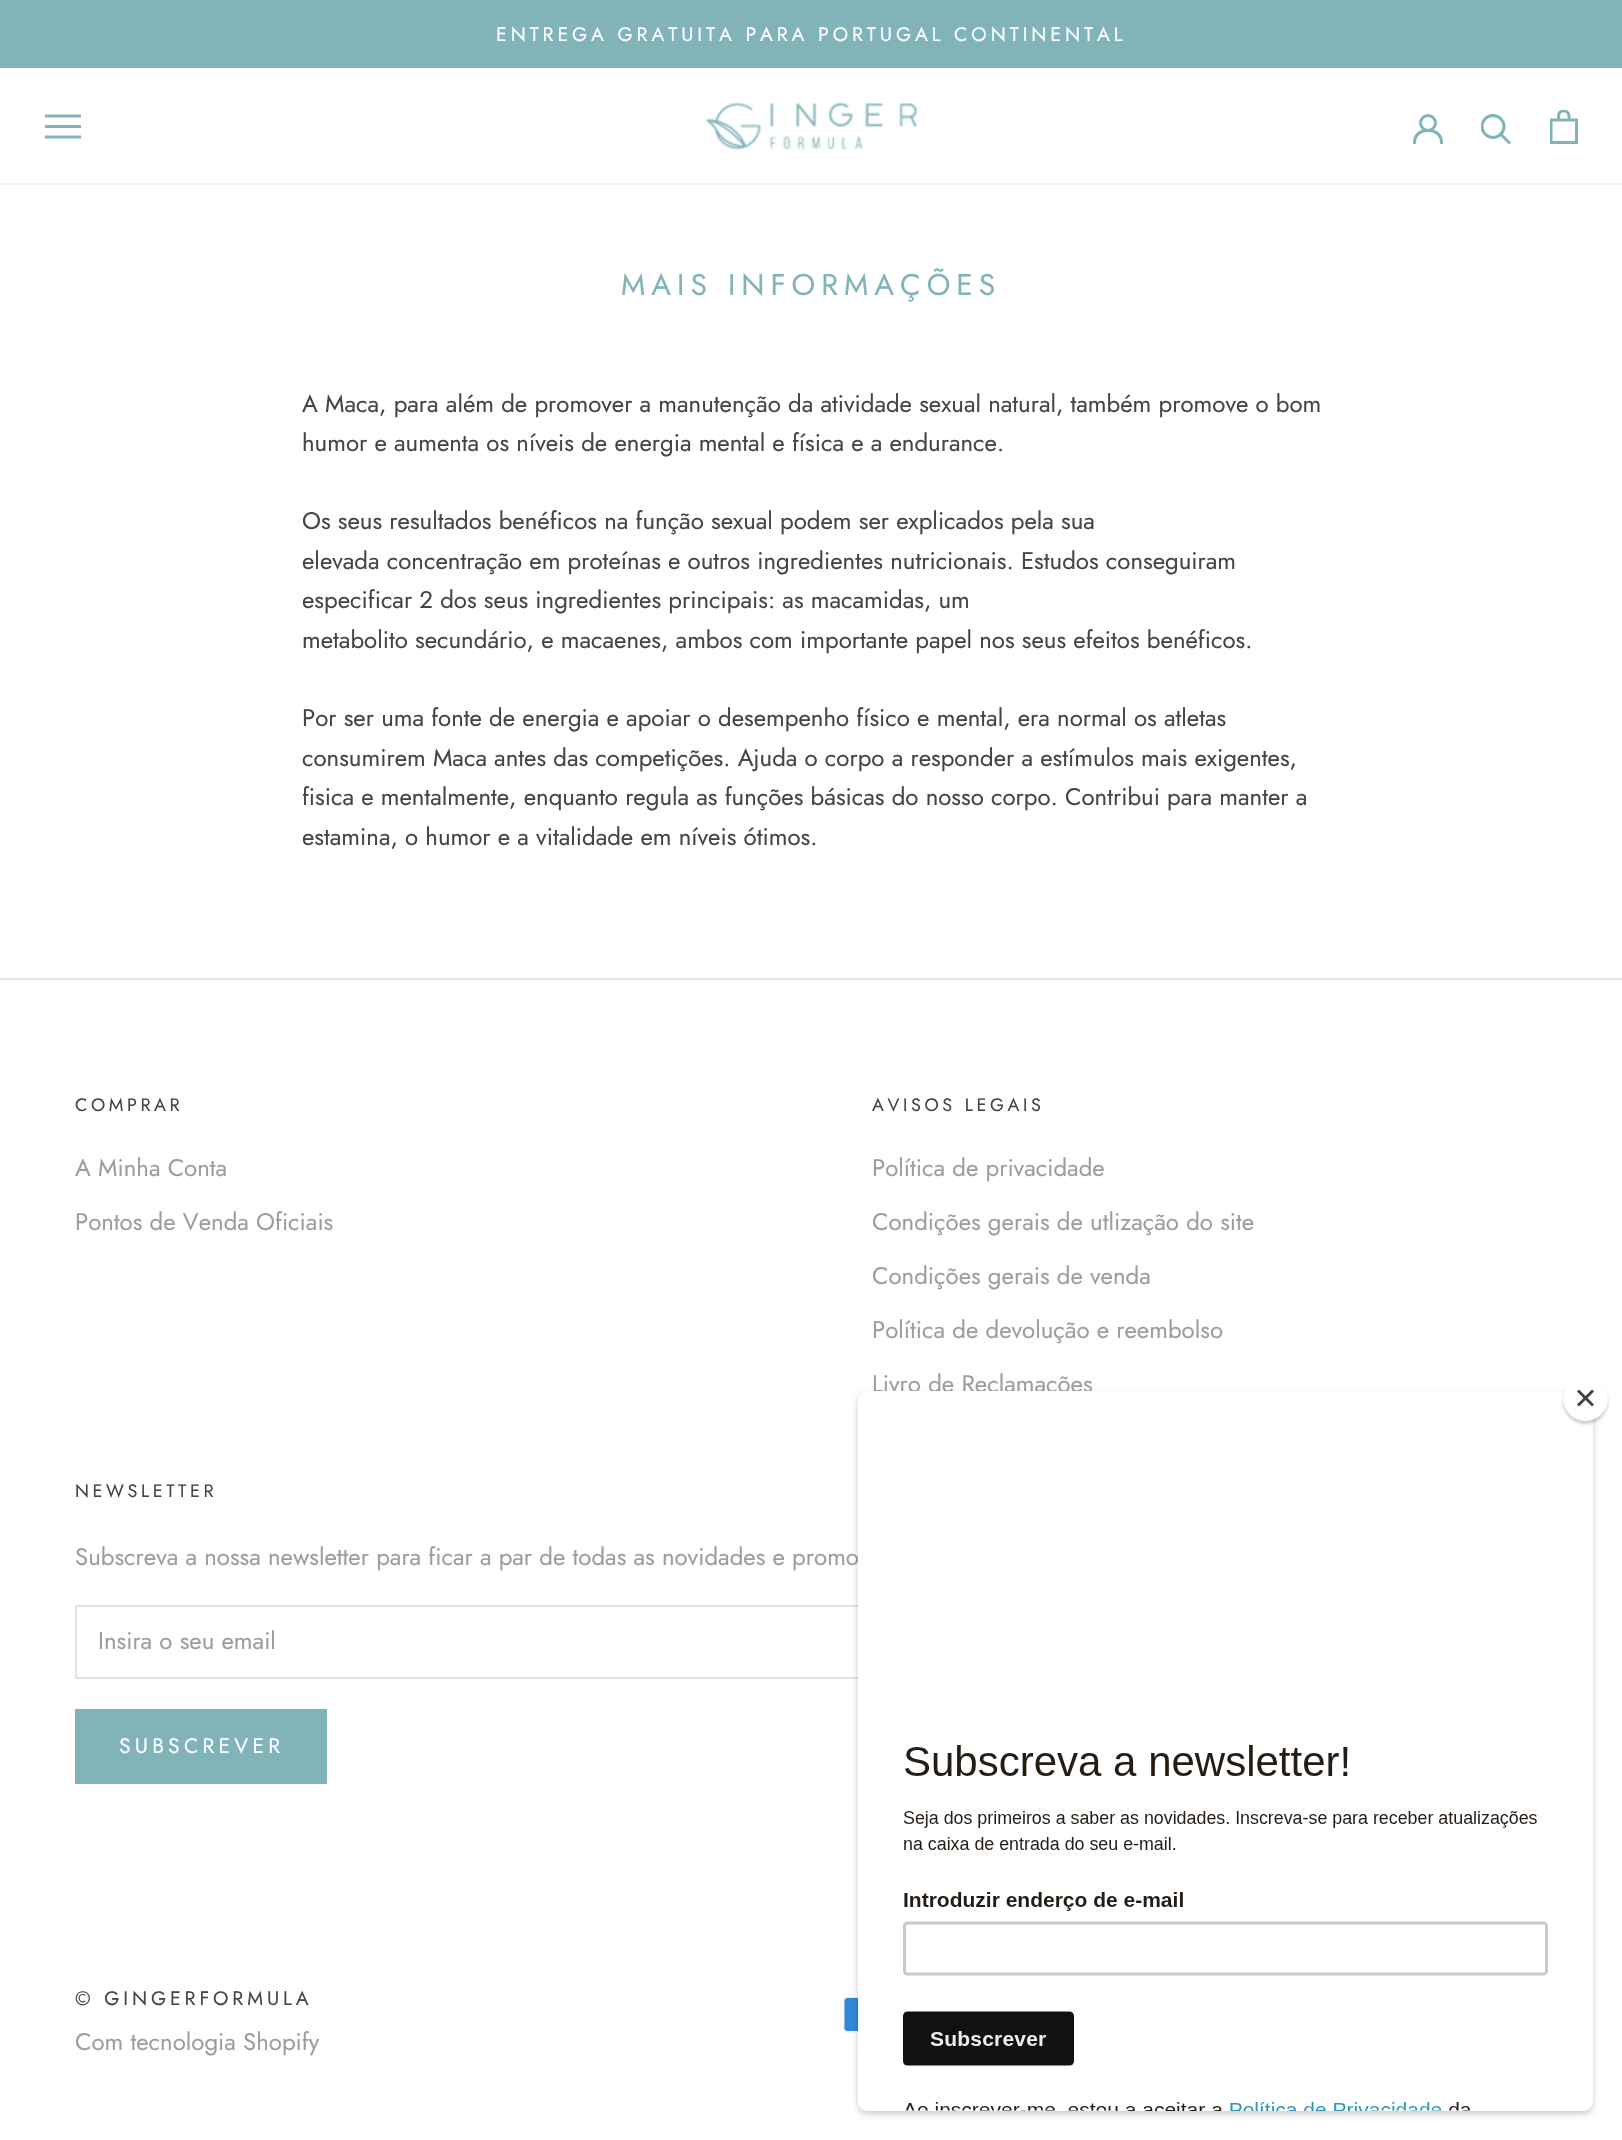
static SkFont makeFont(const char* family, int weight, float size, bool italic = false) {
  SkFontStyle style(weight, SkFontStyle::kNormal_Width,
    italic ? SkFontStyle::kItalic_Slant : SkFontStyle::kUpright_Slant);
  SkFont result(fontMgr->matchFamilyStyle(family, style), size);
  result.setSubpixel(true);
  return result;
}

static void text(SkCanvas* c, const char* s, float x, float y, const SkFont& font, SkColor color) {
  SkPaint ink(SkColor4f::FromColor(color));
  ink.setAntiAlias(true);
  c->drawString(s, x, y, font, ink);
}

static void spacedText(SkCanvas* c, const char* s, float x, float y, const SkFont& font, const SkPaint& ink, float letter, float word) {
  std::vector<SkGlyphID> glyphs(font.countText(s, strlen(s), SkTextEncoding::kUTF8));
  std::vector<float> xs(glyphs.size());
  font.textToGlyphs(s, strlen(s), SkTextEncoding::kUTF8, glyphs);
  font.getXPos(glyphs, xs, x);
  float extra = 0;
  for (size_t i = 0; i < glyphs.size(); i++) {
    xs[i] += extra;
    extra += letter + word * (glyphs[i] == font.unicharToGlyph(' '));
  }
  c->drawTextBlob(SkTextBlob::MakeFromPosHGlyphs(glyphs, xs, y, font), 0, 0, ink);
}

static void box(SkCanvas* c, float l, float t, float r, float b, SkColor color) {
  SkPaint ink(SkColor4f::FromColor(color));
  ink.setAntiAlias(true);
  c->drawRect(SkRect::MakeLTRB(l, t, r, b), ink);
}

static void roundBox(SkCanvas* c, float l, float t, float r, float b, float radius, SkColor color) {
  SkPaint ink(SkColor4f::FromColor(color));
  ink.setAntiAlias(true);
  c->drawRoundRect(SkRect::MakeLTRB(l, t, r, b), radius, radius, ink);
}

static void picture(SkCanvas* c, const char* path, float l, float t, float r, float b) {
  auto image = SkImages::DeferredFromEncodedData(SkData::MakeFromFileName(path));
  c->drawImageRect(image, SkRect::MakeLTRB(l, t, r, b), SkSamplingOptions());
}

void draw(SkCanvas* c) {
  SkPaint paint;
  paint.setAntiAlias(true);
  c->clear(0xffffffff);
  box(c, 0, 0, 1622, 68, 0xff80b4b9);
  SkFont face1 = makeFont("Jost", 400, 19.5f);
  paint.setColor(0xffffffff);
  spacedText(c, "ENTREGA GRATUITA PARA PORTUGAL CONTINENTAL", 496, 41, face1, paint, 3.9f, 0);
  box(c, 0, 183, 1622, 185, 0xffecf4f5);
  paint.setColor(0xff80b4b9);
  c->drawPath(SkPathBuilder().moveTo(45, 138.5f).lineTo(45, 135.5f).lineTo(81, 135.5f).lineTo(81, 138.5f).close().moveTo(45, 125).lineTo(81, 125).lineTo(81, 128).lineTo(45, 128).close().moveTo(45, 114.5f).lineTo(81, 114.5f).lineTo(81, 117.5f).lineTo(45, 117.5f).close().detach(), paint);
  picture(c, "img_01.png", 706, 102, 917, 151);
  paint.setStyle(SkPaint::kStroke_Style);
  paint.setStrokeWidth(3);
  paint.setStrokeCap(SkPaint::kSquare_Cap);
  c->drawPath(SkPathBuilder().moveTo(1414.5f, 142.5f).cubicTo(1414.5f, 126, 1441.5f, 126, 1441.5f, 142.5f).detach(), paint);
  paint.setStrokeCap(SkPaint::kButt_Cap);
  c->drawCircle(1428, 123, 7.5f, paint);
  paint.setStrokeCap(SkPaint::kSquare_Cap);
  c->drawPath(SkPathBuilder().moveTo(1509, 142.5f).lineTo(1500.5f, 134).detach(), paint);
  c->save();
  c->clipRect(SkRect::MakeLTRB(1481, 114, 1512, 146));
  paint.setStrokeCap(SkPaint::kButt_Cap);
  c->drawCircle(1493, 126.5f, 11, paint);
  c->restore();
  picture(c, "img_02.png", 1550, 110, 1578, 144);
  SkFont face2 = makeFont("Jost", 400, 30);
  paint.setStyle(SkPaint::kFill_Style);
  spacedText(c, "MAIS INFORMAÇÕES", 621, 295, face2, paint, 6, 0);
  SkFont face3 = makeFont("Jost", 400, 24);
  text(c, "A Maca, para além de promover a manutenção da atividade sexual natural, também promove o bom", 302, 412, face3, 0xff454545);
  text(c, "humor e aumenta os níveis de energia mental e física e a endurance.", 302, 451, face3, 0xff454545);
  text(c, "Os seus resultados benéficos na função sexual podem ser explicados pela sua", 302, 529, face3, 0xff454545);
  text(c, "elevada concentração em proteínas e outros ingredientes nutricionais. Estudos conseguiram", 302, 569, face3, 0xff454545);
  text(c, "especificar 2 dos seus ingredientes principais: as macamidas, um", 302, 608, face3, 0xff454545);
  text(c, "metabolito secundário, e macaenes, ambos com importante papel nos seus efeitos benéficos.", 302, 648, face3, 0xff454545);
  text(c, "Por ser uma fonte de energia e apoiar o desempenho físico e mental, era normal os atletas", 302, 726, face3, 0xff454545);
  text(c, "consumirem Maca antes das competições. Ajuda o corpo a responder a estímulos mais exigentes,", 302, 766, face3, 0xff454545);
  text(c, "fisica e mentalmente, enquanto regula as funções básicas do nosso corpo. Contribui para manter a", 302, 805, face3, 0xff454545);
  text(c, "estamina, o humor e a vitalidade em níveis ótimos.", 302, 845, face3, 0xff454545);
  box(c, 0, 978, 1622, 980, 0xffe3e3e3);
  SkFont face4 = makeFont("Jost", 400, 18);
  paint.setColor(0xff454545);
  spacedText(c, "COMPRAR", 75, 1111, face4, paint, 3.6f, 0);
  text(c, "A Minha Conta", 75, 1176, face3, 0xff9d9d9d);
  text(c, "Pontos de Venda Oficiais", 75, 1230, face3, 0xff9d9d9d);
  spacedText(c, "AVISOS LEGAIS", 872, 1111, face4, paint, 3.6f, 0);
  text(c, "Política de privacidade", 872, 1176, face3, 0xff9d9d9d);
  text(c, "Condições gerais de utlização do site", 872, 1230, face3, 0xff9d9d9d);
  text(c, "Condições gerais de venda", 872, 1284, face3, 0xff9d9d9d);
  text(c, "Política de devolução e reembolso", 872, 1338, face3, 0xff9d9d9d);
  text(c, "Livro de Reclamações", 872, 1392, face3, 0xff9d9d9d);
  spacedText(c, "NEWSLETTER", 75, 1497, face4, paint, 3.6f, 0);
  text(c, "Subscreva a nossa newsletter para ficar a par de todas as novidades e promo", 75, 1565, face3, 0xff9d9d9d);
  paint.setStyle(SkPaint::kStroke_Style);
  paint.setStrokeWidth(2);
  paint.setColor(0xffe3e3e3);
  c->drawRect(SkRect::MakeLTRB(76, 1606, 1547, 1678), paint);
  text(c, "Insira o seu email", 98, 1649, face3, 0xff9d9d9d);
  paint.setColor(0xff80b4b9);
  c->drawRect(SkRect::MakeLTRB(76, 1710, 326, 1783), paint);
  box(c, 77, 1711, 325, 1782, 0xff80b4b9);
  SkFont face5 = makeFont("Jost", 400, 21);
  paint.setStyle(SkPaint::kFill_Style);
  paint.setColor(0xffffffff);
  spacedText(c, "SUBSCREVER", 119, 1753, face5, paint, 4.25f, 0);
  paint.setColor(0xff454545);
  spacedText(c, "© GINGERFORMULA", 75, 2005, face1, paint, 3.9f, 0);
  text(c, "Com tecnologia Shopify", 75, 2050, face3, 0xff9d9d9d);
  picture(c, "img_03.png", 843, 1997, 858, 2033);
  paint.setColor(0x33000000);
  paint.setMaskFilter(SkMaskFilter::MakeBlur(kNormal_SkBlurStyle, 3));
  c->drawRoundRect(SkRect::MakeLTRB(858, 1394, 1593, 2114), 9, 9, paint);
  paint.setMaskFilter(nullptr);
  roundBox(c, 858, 1391, 1593, 2111, 9, 0xffffffff);
  paint.setMaskFilter(SkMaskFilter::MakeBlur(kNormal_SkBlurStyle, 1.5f));
  c->drawRoundRect(SkRect::MakeLTRB(1563, 1379, 1608, 1424), 22.5f, 22.5f, paint);
  paint.setMaskFilter(nullptr);
  paint.setColor(0xffffffff);
  c->drawCircle(1585.5f, 1398.5f, 22.5f, paint);
  paint.setColor(0xff414141);
  c->drawPath(SkPathBuilder().moveTo(1592, 1389.5f).lineTo(1594, 1391.5f).lineTo(1579, 1406.5f).lineTo(1577, 1404.5f).close().detach(), paint);
  c->drawPath(SkPathBuilder().moveTo(1577, 1391.5f).lineTo(1579, 1389.5f).lineTo(1594, 1404.5f).lineTo(1592, 1406.5f).close().detach(), paint);
  picture(c, "img_04.png", 903, 1745, 1548, 2111);
}
